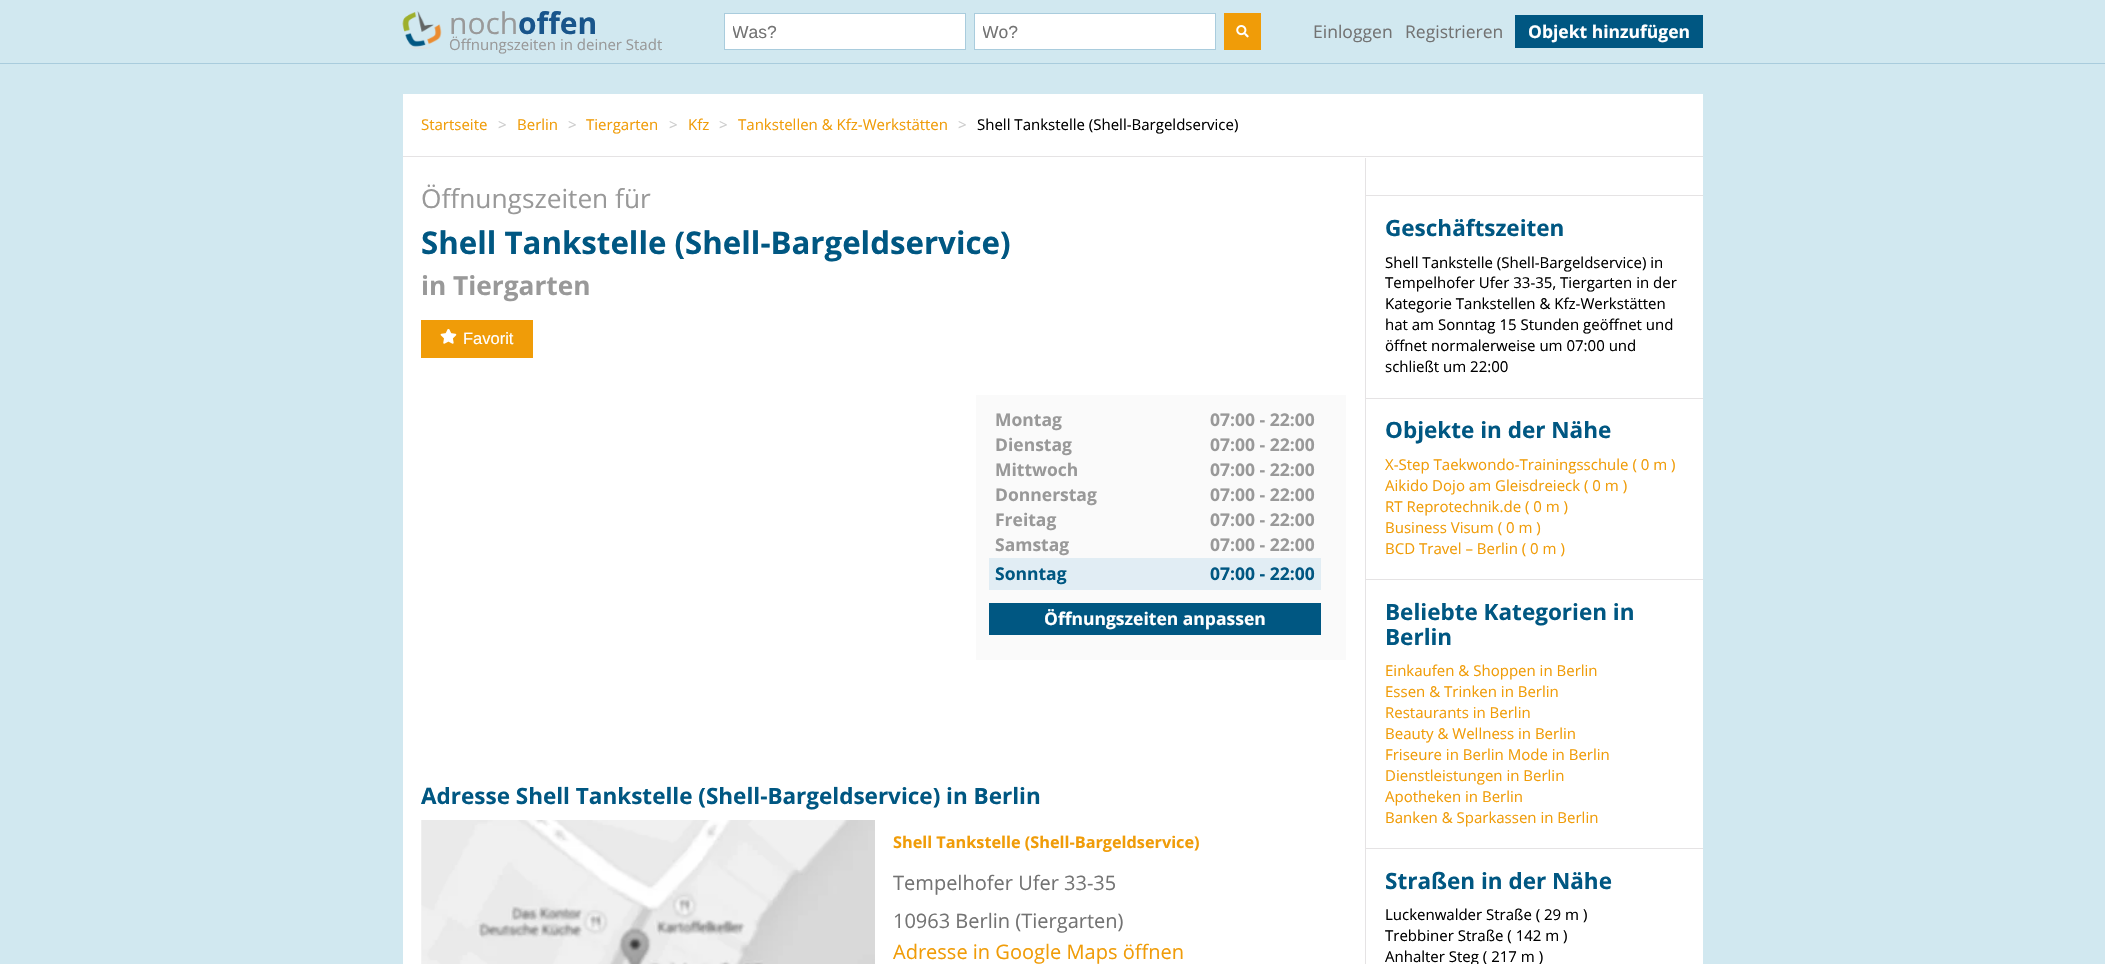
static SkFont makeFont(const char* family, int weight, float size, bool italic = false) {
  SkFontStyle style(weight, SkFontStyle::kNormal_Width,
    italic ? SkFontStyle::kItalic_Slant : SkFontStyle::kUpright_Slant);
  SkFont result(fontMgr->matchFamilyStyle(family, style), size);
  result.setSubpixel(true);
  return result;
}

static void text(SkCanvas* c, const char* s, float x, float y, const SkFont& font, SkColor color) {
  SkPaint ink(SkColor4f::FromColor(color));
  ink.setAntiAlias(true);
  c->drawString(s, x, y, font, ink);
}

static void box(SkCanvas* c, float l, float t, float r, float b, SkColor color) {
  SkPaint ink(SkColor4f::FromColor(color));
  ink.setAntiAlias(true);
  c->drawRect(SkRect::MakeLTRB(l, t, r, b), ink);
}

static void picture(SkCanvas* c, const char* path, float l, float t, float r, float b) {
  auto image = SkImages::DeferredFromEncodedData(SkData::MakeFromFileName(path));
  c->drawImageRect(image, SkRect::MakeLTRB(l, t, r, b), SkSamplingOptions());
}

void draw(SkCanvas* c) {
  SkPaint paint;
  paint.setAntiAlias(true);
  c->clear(0xffd1e8f0);
  box(c, 0, 63, 2105, 64, 0xffa9ccdd);
  picture(c, "img_01.png", 402, 11, 442, 49);
  SkFont face1 = makeFont("Open Sans", 400, 30);
  text(c, "noch", 449, 34, face1, 0xff999999);
  SkFont face2 = makeFont("Open Sans", 700, 30);
  text(c, "offen", 518, 34, face2, 0xff19558b);
  SkFont face3 = makeFont("Open Sans", 400, 15);
  text(c, "Öffnungszeiten in deiner Stadt", 449, 50, face3, 0xff999999);
  paint.setColor(0xffffffff);
  c->drawRect(SkRect::MakeLTRB(724.5f, 13.5f, 965.5f, 49.5f), paint);
  paint.setStyle(SkPaint::kStroke_Style);
  paint.setStrokeWidth(1);
  paint.setColor(0xffa9ccdd);
  c->drawRect(SkRect::MakeLTRB(724.5f, 13.5f, 965.5f, 49.5f), paint);
  c->save();
  c->clipRect(SkRect::MakeLTRB(733, 21, 958, 41));
  SkFont face4 = makeFont("Liberation Sans", 400, 17.5f);
  text(c, "Was?", 732, 38, face4, 0xff737373);
  c->restore();
  paint.setStyle(SkPaint::kFill_Style);
  paint.setColor(0xffffffff);
  c->drawRect(SkRect::MakeLTRB(974.5f, 13.5f, 1215.5f, 49.5f), paint);
  paint.setStyle(SkPaint::kStroke_Style);
  paint.setColor(0xffa9ccdd);
  c->drawRect(SkRect::MakeLTRB(974.5f, 13.5f, 1215.5f, 49.5f), paint);
  c->save();
  c->clipRect(SkRect::MakeLTRB(983, 21, 1208, 41));
  text(c, "Wo?", 982, 38, face4, 0xff737373);
  c->restore();
  box(c, 1224, 13, 1261, 50, 0xfff09c08);
  picture(c, "img_02.png", 1236, 25, 1249, 38);
  SkFont face5 = makeFont("Open Sans", 400, 17.5f);
  text(c, "Einloggen", 1313, 38, face5, 0xff737373);
  text(c, "Registrieren", 1405, 38, face5, 0xff737373);
  box(c, 1515, 15, 1703, 48, 0xff005782);
  SkFont face6 = makeFont("Open Sans", 700, 17.5f);
  text(c, "Objekt hinzufügen", 1528, 38, face6, 0xffffffff);
  box(c, 403, 94, 1703, 964, 0xffffffff);
  box(c, 403, 156, 1703, 157, 0xffe5e3e4);
  text(c, "Startseite", 421, 130, face3, 0xfff09c08);
  text(c, ">", 498, 130, face3, 0xffcccccc);
  text(c, "Berlin", 517, 130, face3, 0xfff09c08);
  text(c, ">", 568, 130, face3, 0xffcccccc);
  text(c, "Tiergarten", 586, 130, face3, 0xfff09c08);
  text(c, ">", 669, 130, face3, 0xffcccccc);
  text(c, "Kfz", 688, 130, face3, 0xfff09c08);
  text(c, ">", 719, 130, face3, 0xffcccccc);
  text(c, "Tankstellen & Kfz-Werkstätten", 738, 130, face3, 0xfff09c08);
  text(c, ">", 958, 130, face3, 0xffcccccc);
  text(c, "Shell Tankstelle (Shell-Bargeldservice)", 977, 130, face3, 0xff000000);
  SkFont face7 = makeFont("Open Sans", 400, 26.25f);
  text(c, "Öffnungszeiten für", 421, 208, face7, 0xff999999);
  SkFont face8 = makeFont("Open Sans", 700, 31.25f);
  text(c, "Shell Tankstelle (Shell-Bargeldservice)", 421, 254, face8, 0xff005782);
  SkFont face9 = makeFont("Open Sans", 700, 26.25f);
  text(c, "in Tiergarten", 421, 295, face9, 0xff999999);
  box(c, 421, 320, 533, 358, 0xfff09c08);
  picture(c, "img_03.png", 440, 329, 457, 344);
  SkFont face10 = makeFont("Liberation Sans", 400, 16.5f);
  text(c, "Favorit", 463, 344, face10, 0xffffffff);
  box(c, 976, 395, 1346, 660, 0xfffafafa);
  text(c, "Montag", 995, 426, face6, 0xff999999);
  text(c, "07:00 - 22:00", 1210, 426, face6, 0xff999999);
  text(c, "Dienstag", 995, 451, face6, 0xff999999);
  text(c, "07:00 - 22:00", 1210, 451, face6, 0xff999999);
  text(c, "Mittwoch", 995, 476, face6, 0xff999999);
  text(c, "07:00 - 22:00", 1210, 476, face6, 0xff999999);
  text(c, "Donnerstag", 995, 501, face6, 0xff999999);
  text(c, "07:00 - 22:00", 1210, 501, face6, 0xff999999);
  text(c, "Freitag", 995, 526, face6, 0xff999999);
  text(c, "07:00 - 22:00", 1210, 526, face6, 0xff999999);
  text(c, "Samstag", 995, 551, face6, 0xff999999);
  text(c, "07:00 - 22:00", 1210, 551, face6, 0xff999999);
  box(c, 989, 558, 1321, 590, 0xffe1edf4);
  text(c, "Sonntag", 995, 580, face6, 0xff005782);
  text(c, "07:00 - 22:00", 1210, 580, face6, 0xff005782);
  box(c, 989, 603, 1321, 635, 0xff005782);
  text(c, "Öffnungszeiten anpassen", 1044, 625, face6, 0xffffffff);
  SkFont face11 = makeFont("Open Sans", 700, 22.5f);
  text(c, "Adresse Shell Tankstelle (Shell-Bargeldservice) in Berlin", 421, 804, face11, 0xff005782);
  picture(c, "img_04.png", 421, 820, 875, 964);
  SkFont face12 = makeFont("Open Sans", 700, 16.25f);
  text(c, "Shell Tankstelle (Shell-Bargeldservice)", 893, 848, face12, 0xfff09c08);
  SkFont face13 = makeFont("Open Sans", 400, 20);
  text(c, "Tempelhofer Ufer 33-35", 893, 890, face13, 0xff737373);
  text(c, "10963 Berlin (Tiergarten)", 893, 928, face13, 0xff737373);
  text(c, "Adresse in Google Maps öffnen", 893, 959, face13, 0xfff09c08);
  box(c, 1365, 158, 1366, 964, 0xffe5e3e4);
  box(c, 1366, 195, 1703, 196, 0xffe5e3e4);
  box(c, 1366, 398, 1703, 399, 0xffe5e3e4);
  text(c, "Geschäftszeiten", 1385, 236, face11, 0xff005782);
  text(c, "Shell Tankstelle (Shell-Bargeldservice) in", 1385, 268, face3, 0xff000000);
  text(c, "Tempelhofer Ufer 33-35, Tiergarten in der", 1385, 288, face3, 0xff000000);
  text(c, "Kategorie Tankstellen & Kfz-Werkstätten", 1385, 309, face3, 0xff000000);
  text(c, "hat am Sonntag 15 Stunden geöffnet und", 1385, 330, face3, 0xff000000);
  text(c, "öffnet normalerweise um 07:00 und", 1385, 351, face3, 0xff000000);
  text(c, "schließt um 22:00", 1385, 372, face3, 0xff000000);
  box(c, 1366, 579, 1703, 580, 0xffe5e3e4);
  text(c, "Objekte in der Nähe", 1385, 438, face11, 0xff005782);
  text(c, "X-Step Taekwondo-Trainingsschule ( 0 m )", 1385, 470, face3, 0xfff09c08);
  text(c, "Aikido Dojo am Gleisdreieck ( 0 m )", 1385, 491, face3, 0xfff09c08);
  text(c, "RT Reprotechnik.de ( 0 m )", 1385, 512, face3, 0xfff09c08);
  text(c, "Business Visum ( 0 m )", 1385, 533, face3, 0xfff09c08);
  text(c, "BCD Travel – Berlin ( 0 m )", 1385, 554, face3, 0xfff09c08);
  box(c, 1366, 848, 1703, 849, 0xffe5e3e4);
  text(c, "Beliebte Kategorien in", 1385, 620, face11, 0xff005782);
  text(c, "Berlin", 1385, 645, face11, 0xff005782);
  text(c, "Einkaufen & Shoppen in Berlin", 1385, 676, face3, 0xfff09c08);
  text(c, "Essen & Trinken in Berlin", 1385, 697, face3, 0xfff09c08);
  text(c, "Restaurants in Berlin", 1385, 718, face3, 0xfff09c08);
  text(c, "Beauty & Wellness in Berlin", 1385, 739, face3, 0xfff09c08);
  text(c, "Friseure in Berlin Mode in Berlin", 1385, 760, face3, 0xfff09c08);
  text(c, "Dienstleistungen in Berlin", 1385, 781, face3, 0xfff09c08);
  text(c, "Apotheken in Berlin", 1385, 802, face3, 0xfff09c08);
  text(c, "Banken & Sparkassen in Berlin", 1385, 823, face3, 0xfff09c08);
  text(c, "Straßen in der Nähe", 1385, 889, face11, 0xff005782);
  text(c, "Luckenwalder Straße ( 29 m )", 1385, 920, face3, 0xff000000);
  text(c, "Trebbiner Straße ( 142 m )", 1385, 941, face3, 0xff000000);
  text(c, "Anhalter Steg ( 217 m )", 1385, 962, face3, 0xff000000);
}
